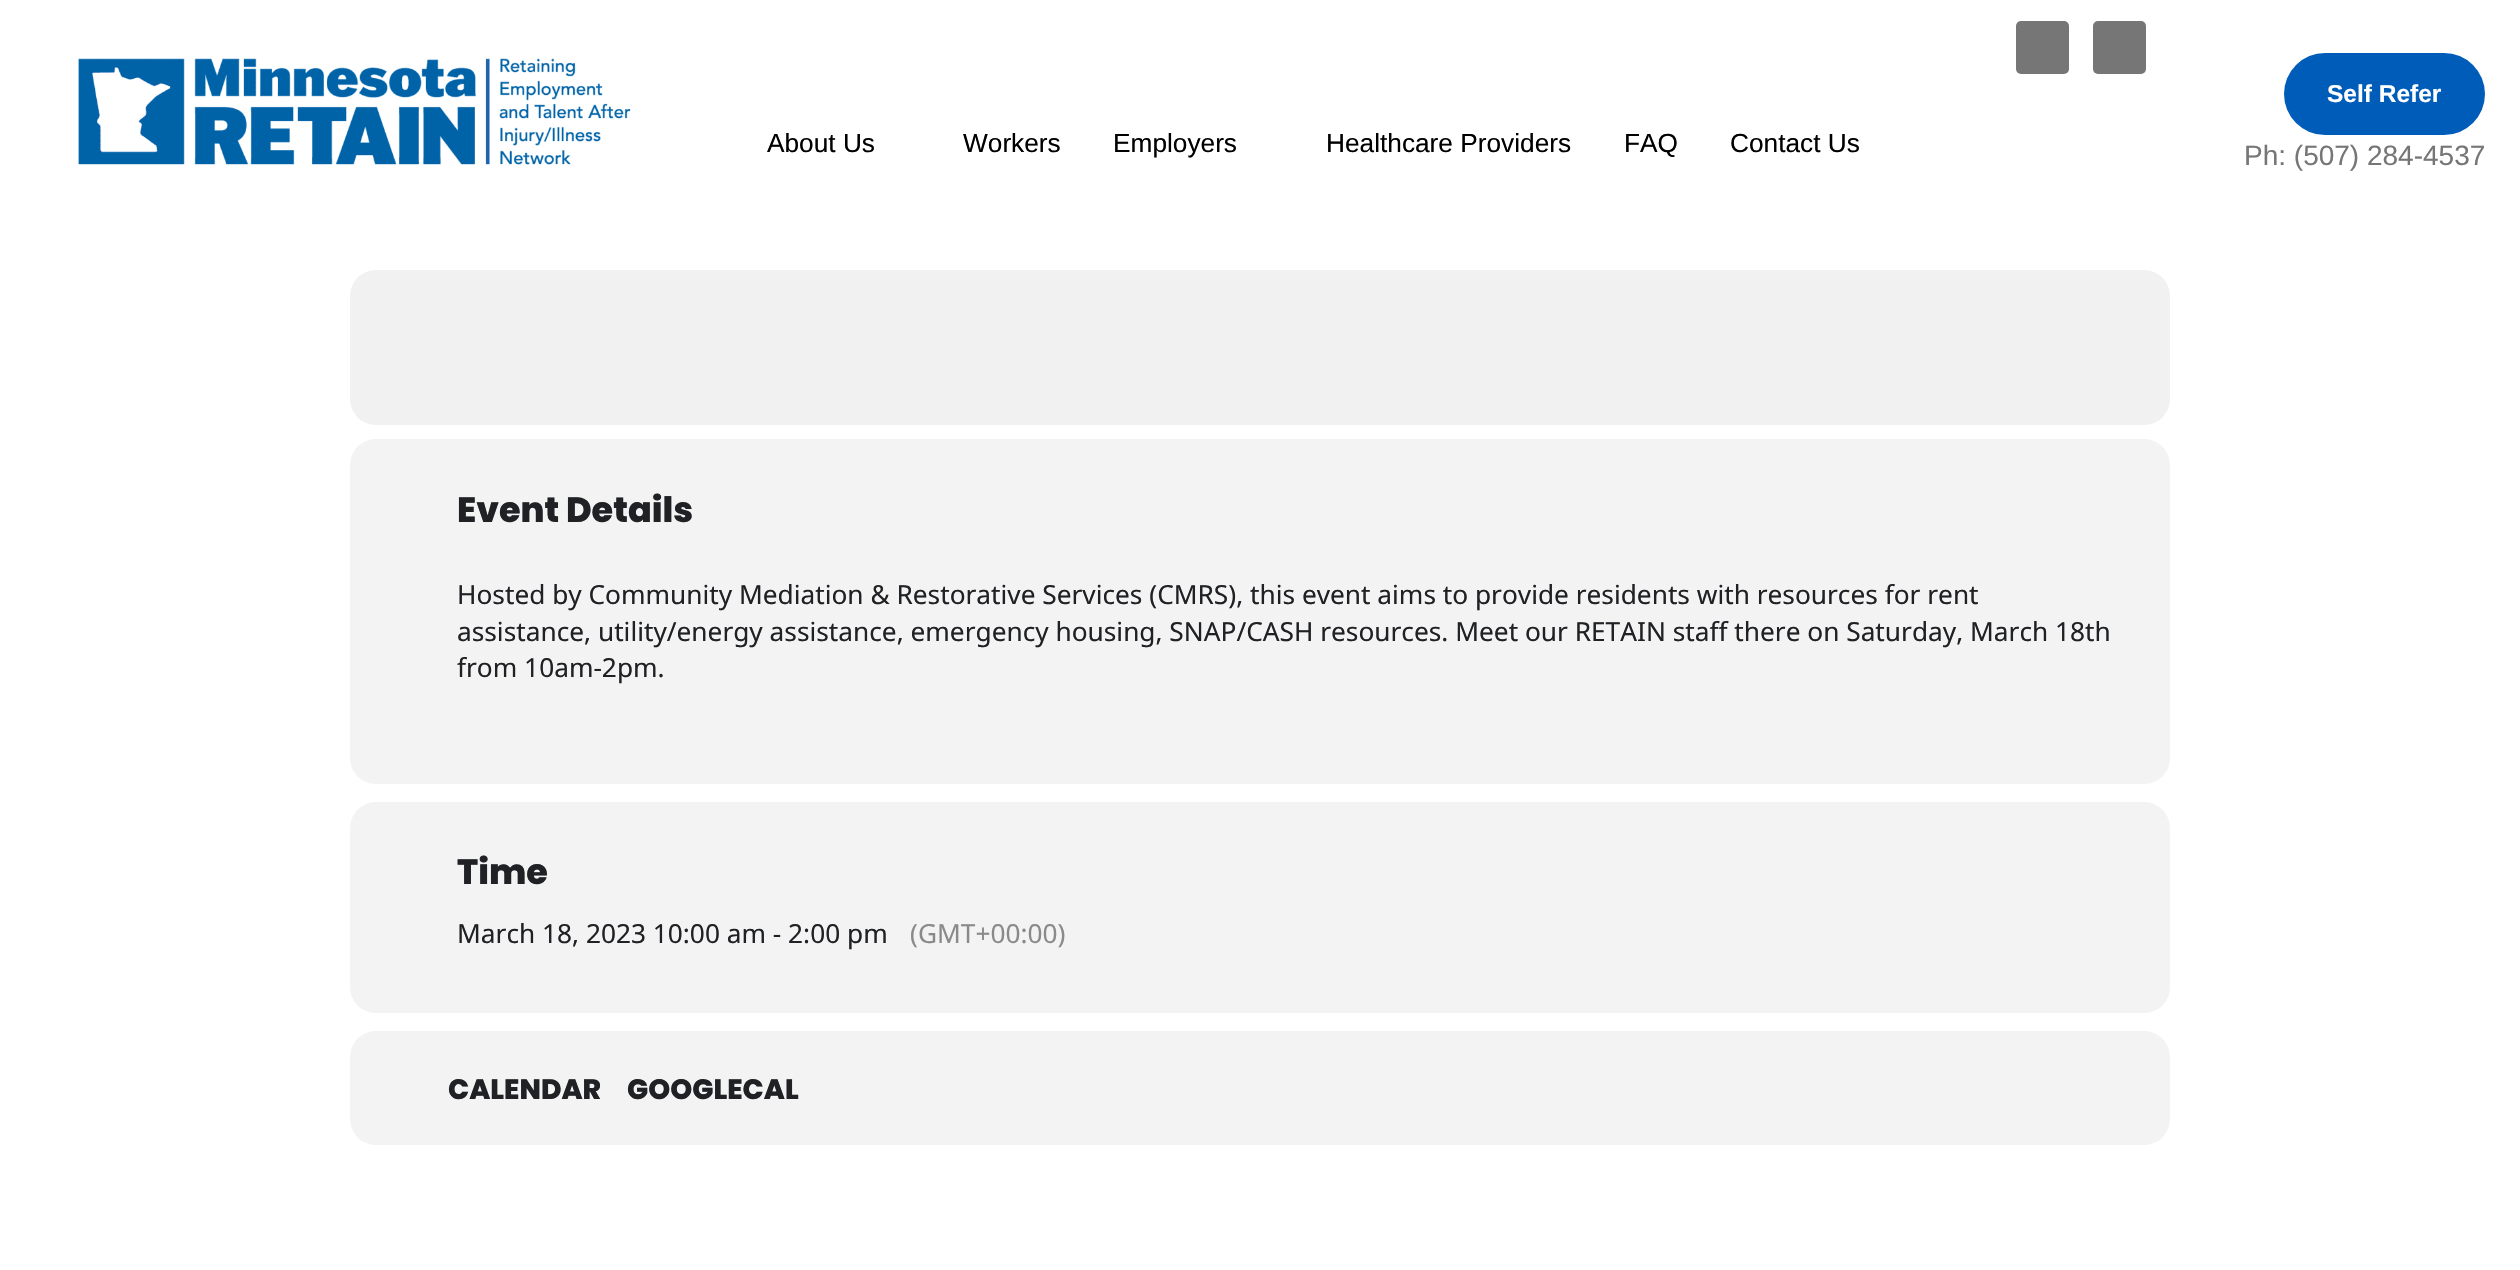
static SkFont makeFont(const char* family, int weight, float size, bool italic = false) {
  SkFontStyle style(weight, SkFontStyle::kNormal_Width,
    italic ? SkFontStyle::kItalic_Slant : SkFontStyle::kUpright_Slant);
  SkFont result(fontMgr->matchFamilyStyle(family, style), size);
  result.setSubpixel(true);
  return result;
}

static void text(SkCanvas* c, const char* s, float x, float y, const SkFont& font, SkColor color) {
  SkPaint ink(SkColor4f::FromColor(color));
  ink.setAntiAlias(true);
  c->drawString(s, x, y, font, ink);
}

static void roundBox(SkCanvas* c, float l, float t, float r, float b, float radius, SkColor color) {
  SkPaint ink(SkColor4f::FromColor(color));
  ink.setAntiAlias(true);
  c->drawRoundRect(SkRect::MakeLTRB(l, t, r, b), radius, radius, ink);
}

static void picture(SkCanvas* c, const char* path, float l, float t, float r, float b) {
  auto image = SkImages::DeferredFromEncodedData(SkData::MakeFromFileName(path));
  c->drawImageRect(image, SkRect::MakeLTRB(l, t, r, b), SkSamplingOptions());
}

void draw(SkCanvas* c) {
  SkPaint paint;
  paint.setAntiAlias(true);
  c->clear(0xffffffff);
  picture(c, "img_01.png", 78, 58, 631, 165);
  roundBox(c, 2016, 21, 2069, 74, 5, 0xff767676);
  roundBox(c, 2093, 21, 2146, 74, 5, 0xff767676);
  SkFont face1 = makeFont("Liberation Sans", 400, 26.25f);
  text(c, "About Us", 767, 152, face1, 0xff000000);
  text(c, "Workers", 963, 152, face1, 0xff000000);
  text(c, "Employers", 1113, 152, face1, 0xff000000);
  text(c, "Healthcare Providers", 1326, 152, face1, 0xff000000);
  text(c, "FAQ", 1624, 152, face1, 0xff000000);
  text(c, "Contact Us", 1730, 152, face1, 0xff000000);
  roundBox(c, 2284, 53, 2485, 135, 41, 0xff005cb9);
  SkFont face2 = makeFont("Liberation Sans", 700, 24.5f);
  text(c, "Self Refer", 2327, 102, face2, 0xffffffff);
  SkFont face3 = makeFont("Liberation Sans", 400, 28);
  text(c, "Ph: (507) 284-4537", 2244, 165, face3, 0xff767676);
  roundBox(c, 350, 270, 2170, 425, 26, 0xfff1f1f1);
  roundBox(c, 350, 439, 2170, 784, 26, 0xfff3f3f3);
  SkFont face4 = makeFont("Poppins", 800, 35);
  text(c, "Event Details", 457, 522, face4, 0xff202124);
  SkFont face5 = makeFont("Noto Sans", 400, 26.25f);
  text(c, "Hosted by Community Mediation & Restorative Services (CMRS), this event aims to provide residents with resources for rent", 457, 604, face5, 0xff202124);
  text(c, "assistance, utility/energy assistance, emergency housing, SNAP/CASH resources. Meet our RETAIN staff there on Saturday, March 18th", 457, 641, face5, 0xff202124);
  text(c, "from 10am-2pm.", 457, 677, face5, 0xff202124);
  roundBox(c, 350, 802, 2170, 1013, 26, 0xfff3f3f3);
  text(c, "Time", 457, 884, face4, 0xff202124);
  text(c, "March 18, 2023 10:00 am - 2:00 pm", 457, 943, face5, 0xff202124);
  text(c, "(GMT+00:00)", 910, 943, face5, 0xff8a8a8c);
  roundBox(c, 350, 1031, 2170, 1145, 26, 0xfff3f3f3);
  SkFont face6 = makeFont("Poppins", 800, 28);
  text(c, "CALENDAR", 448, 1099, face6, 0xff202124);
  text(c, "GOOGLECAL", 627, 1099, face6, 0xff202124);
}
